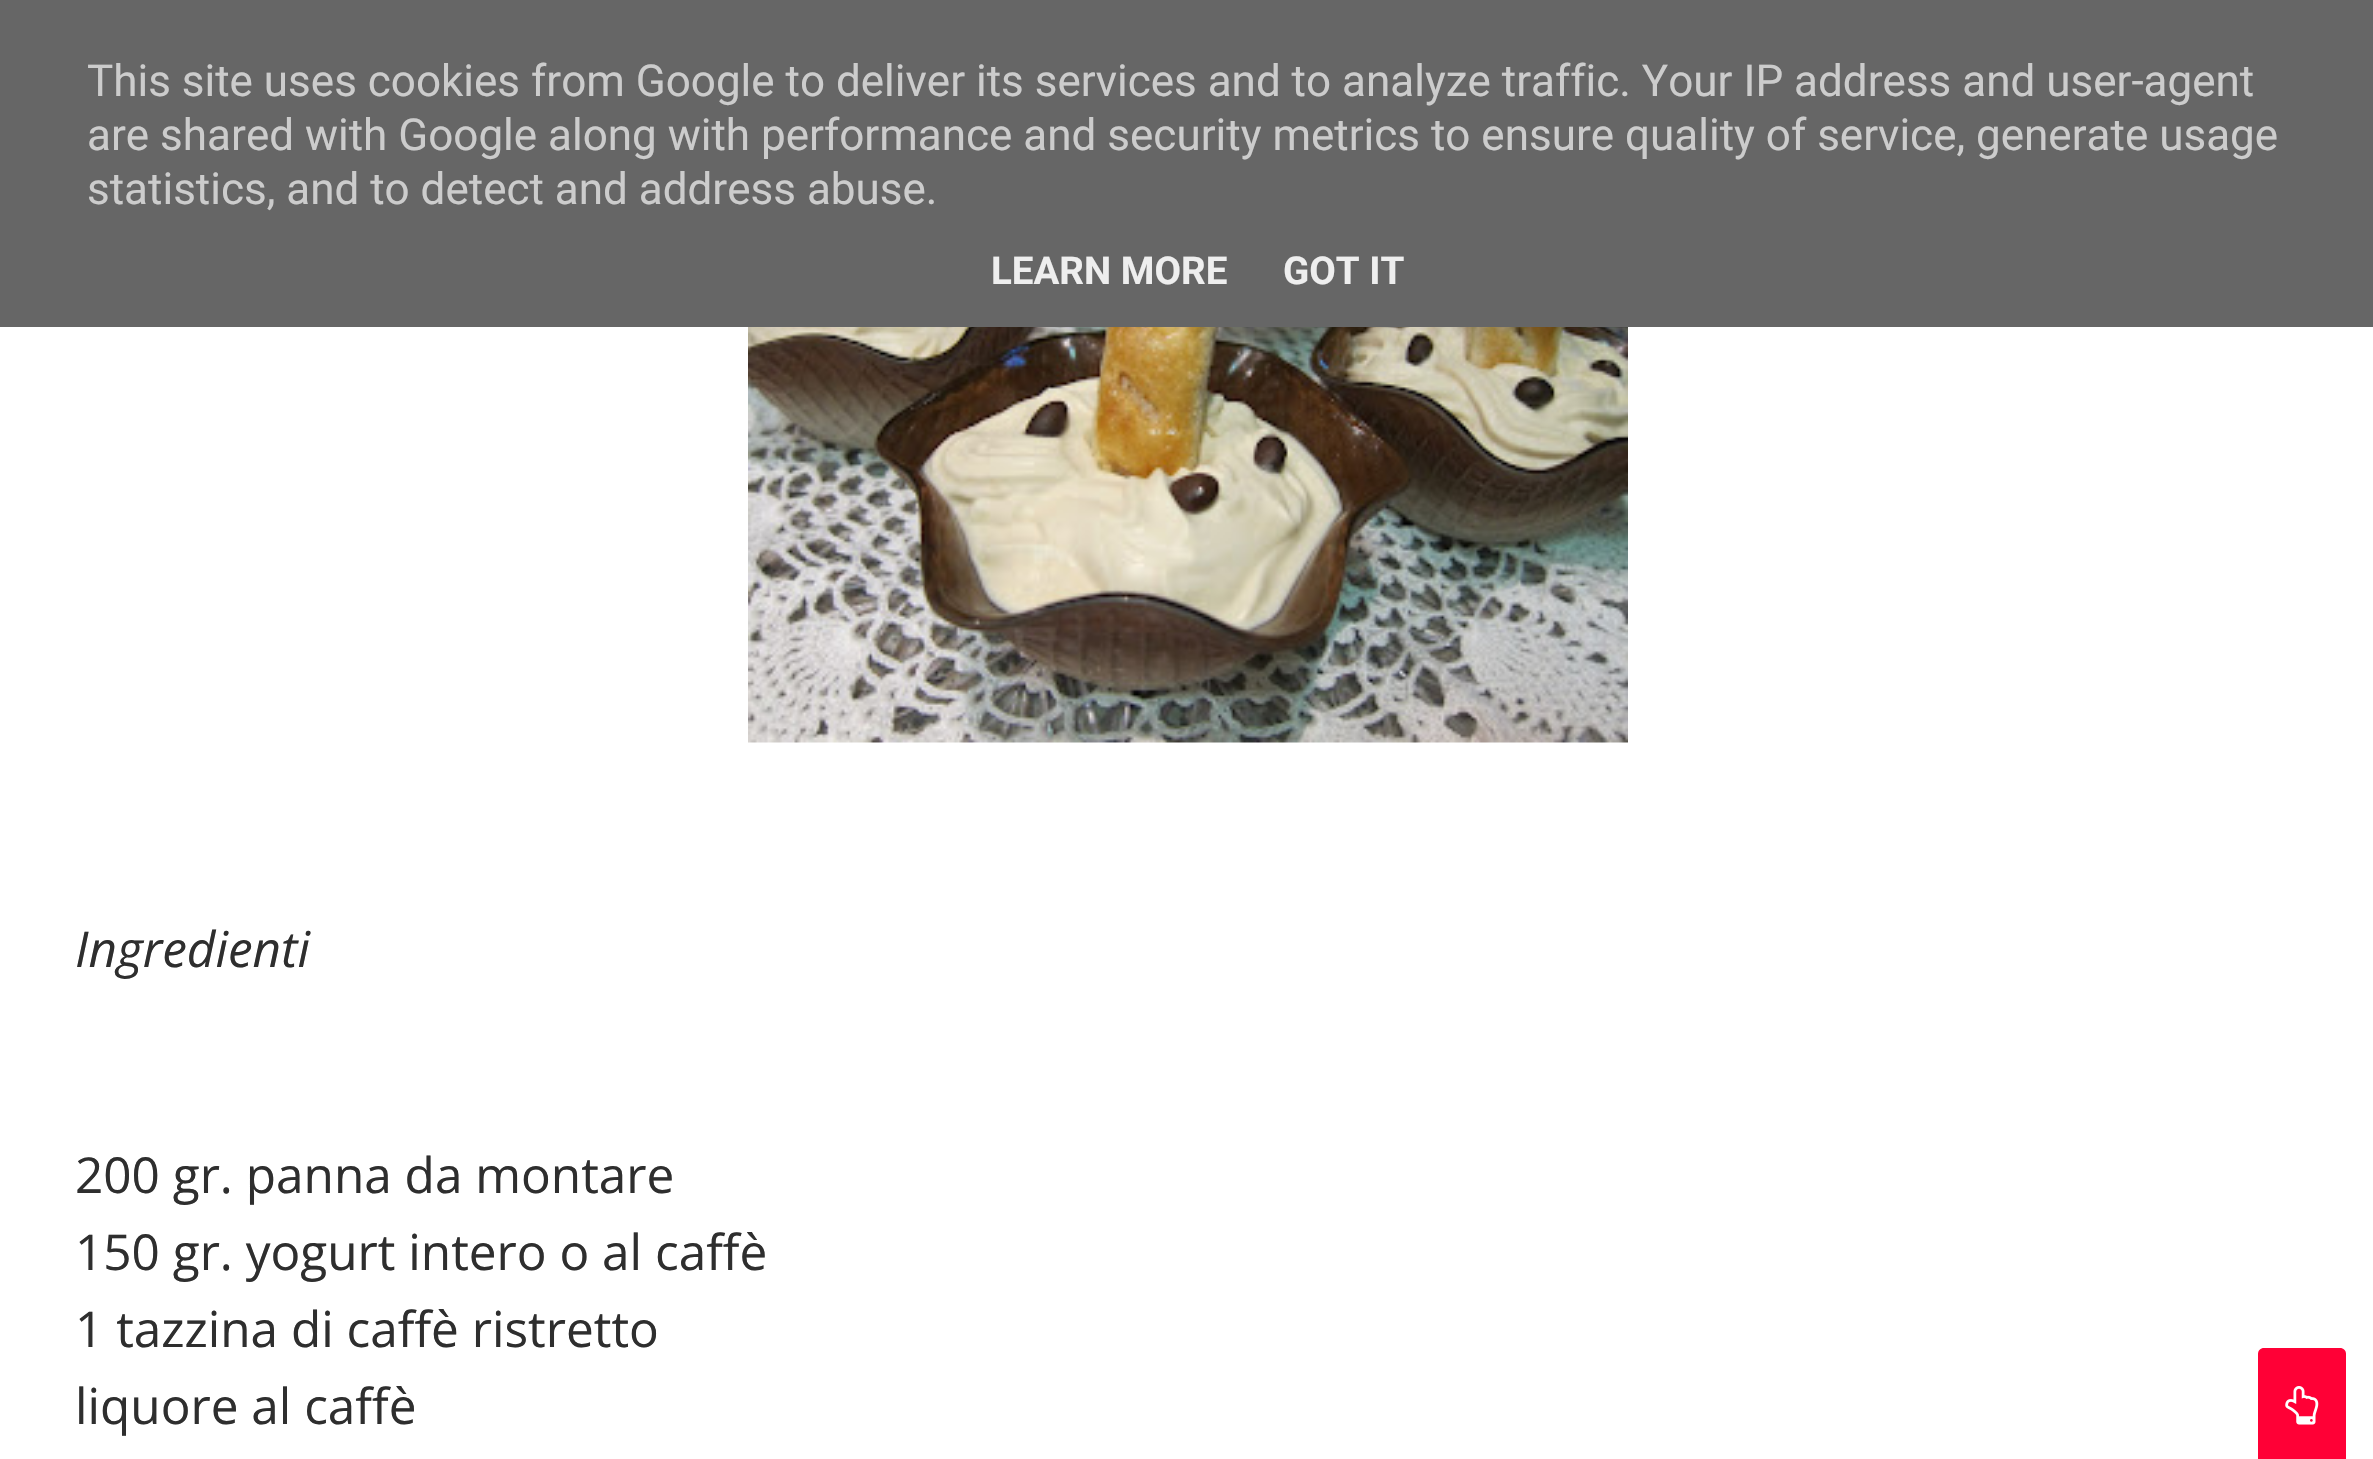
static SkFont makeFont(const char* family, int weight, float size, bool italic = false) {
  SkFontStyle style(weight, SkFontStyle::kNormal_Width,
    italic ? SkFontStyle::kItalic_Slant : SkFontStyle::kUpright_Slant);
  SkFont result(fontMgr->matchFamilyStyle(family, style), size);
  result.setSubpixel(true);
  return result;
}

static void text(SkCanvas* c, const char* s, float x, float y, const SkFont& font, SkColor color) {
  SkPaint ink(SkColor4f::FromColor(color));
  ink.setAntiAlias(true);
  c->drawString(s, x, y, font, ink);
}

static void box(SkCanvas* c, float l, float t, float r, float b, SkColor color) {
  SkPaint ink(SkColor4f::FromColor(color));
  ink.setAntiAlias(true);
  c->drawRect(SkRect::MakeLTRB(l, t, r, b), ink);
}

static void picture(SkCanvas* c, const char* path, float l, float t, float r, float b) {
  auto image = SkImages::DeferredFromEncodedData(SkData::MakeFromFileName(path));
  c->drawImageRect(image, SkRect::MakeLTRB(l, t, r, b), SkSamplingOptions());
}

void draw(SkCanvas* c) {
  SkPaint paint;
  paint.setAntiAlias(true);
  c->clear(0xffffffff);
  box(c, 0, 0, 2373, 327, 0xff666666);
  SkFont face1 = makeFont("Roboto", 400, 44);
  text(c, "This site uses cookies from Google to deliver its services and to analyze traffic. Your IP address and user-agent", 87, 96, face1, 0xffcccccc);
  text(c, "are shared with Google along with performance and security metrics to ensure quality of service, generate usage", 87, 150, face1, 0xffcccccc);
  text(c, "statistics, and to detect and address abuse.", 87, 204, face1, 0xffcccccc);
  SkFont face2 = makeFont("Roboto", 700, 38.5f);
  text(c, "LEARN MORE", 991, 284, face2, 0xffeeeeee);
  text(c, "GOT IT", 1283, 284, face2, 0xffeeeeee);
  picture(c, "img_01.png", 748, 327, 1628, 743);
  SkFont face3 = makeFont("Open Sans", 400, 49.5f, true);
  text(c, "Ingredienti", 75, 967, face3, 0xff2e2e2e);
  SkFont face4 = makeFont("Open Sans", 400, 49.5f);
  text(c, "200 gr. panna da montare", 75, 1193, face4, 0xff2e2e2e);
  text(c, "150 gr. yogurt intero o al caffè", 75, 1270, face4, 0xff2e2e2e);
  text(c, "1 tazzina di caffè ristretto", 75, 1347, face4, 0xff2e2e2e);
  text(c, "liquore al caffè", 75, 1424, face4, 0xff2e2e2e);
  paint.setColor(0xffff0036);
  c->drawPath(SkPathBuilder().moveTo(2264, 1348).lineTo(2340, 1348).cubicTo(2343.5f, 1348, 2346, 1350.5f, 2346, 1354).lineTo(2346, 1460).lineTo(2258, 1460).lineTo(2258, 1354).cubicTo(2258, 1350.5f, 2260.5f, 1348, 2264, 1348).close().detach(), paint);
  picture(c, "img_02.png", 2285, 1386, 2319, 1425);
}
